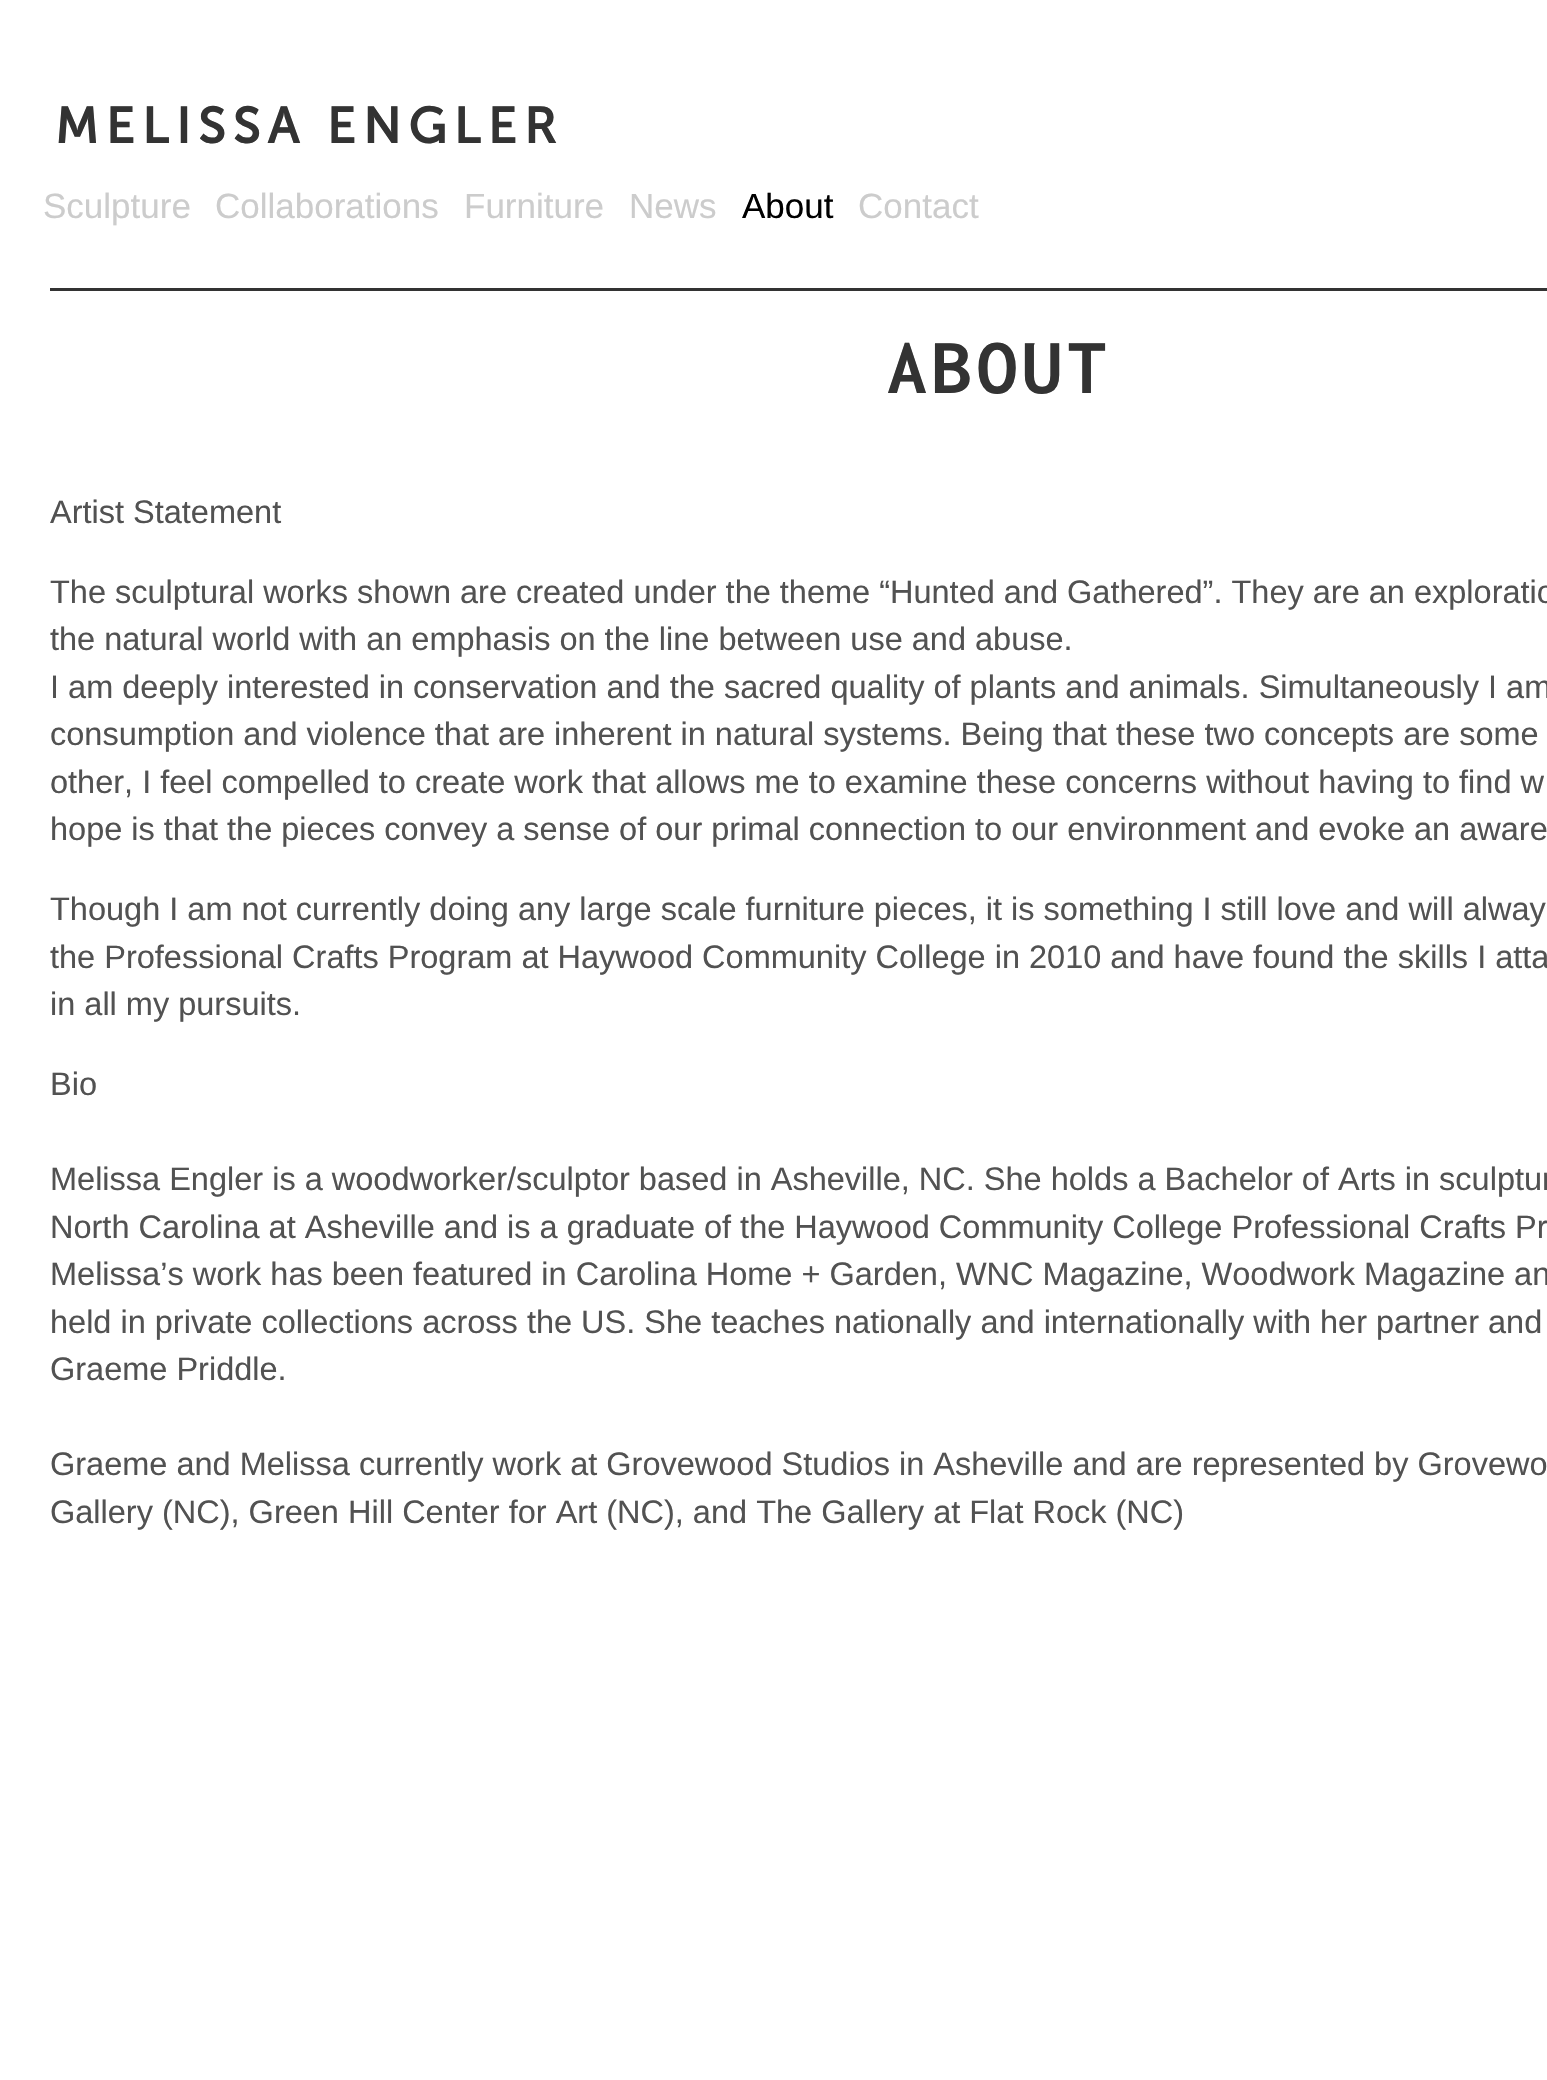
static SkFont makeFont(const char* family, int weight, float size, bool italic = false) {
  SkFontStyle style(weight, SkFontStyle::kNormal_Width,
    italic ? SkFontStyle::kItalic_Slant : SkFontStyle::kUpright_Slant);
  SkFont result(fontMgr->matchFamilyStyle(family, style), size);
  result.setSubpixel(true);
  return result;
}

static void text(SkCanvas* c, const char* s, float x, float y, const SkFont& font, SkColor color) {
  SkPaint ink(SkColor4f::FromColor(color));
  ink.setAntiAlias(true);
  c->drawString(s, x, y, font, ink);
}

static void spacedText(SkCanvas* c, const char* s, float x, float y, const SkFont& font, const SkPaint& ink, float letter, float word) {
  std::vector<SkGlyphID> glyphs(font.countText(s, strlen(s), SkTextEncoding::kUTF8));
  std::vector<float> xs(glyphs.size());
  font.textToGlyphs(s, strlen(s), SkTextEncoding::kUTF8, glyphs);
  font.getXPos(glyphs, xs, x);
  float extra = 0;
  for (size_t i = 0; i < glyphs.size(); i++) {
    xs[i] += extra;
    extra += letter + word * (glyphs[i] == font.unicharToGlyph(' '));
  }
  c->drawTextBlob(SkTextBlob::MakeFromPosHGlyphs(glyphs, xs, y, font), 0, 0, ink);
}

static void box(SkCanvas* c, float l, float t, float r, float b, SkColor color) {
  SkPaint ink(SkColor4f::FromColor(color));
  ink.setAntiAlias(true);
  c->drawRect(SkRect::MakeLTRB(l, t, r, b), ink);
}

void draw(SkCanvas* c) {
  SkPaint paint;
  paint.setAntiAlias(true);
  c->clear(0xffffffff);
  SkFont face1 = makeFont("Museo Sans", 700, 50);
  paint.setColor(0xff333333);
  spacedText(c, "MELISSA ENGLER", 55, 143, face1, paint, 7.5f, 0);
  SkFont face2 = makeFont("Liberation Sans", 400, 35);
  text(c, "Sculpture", 43, 218, face2, 0xffcccccc);
  text(c, "Collaborations", 215, 218, face2, 0xffcccccc);
  text(c, "Furniture", 464, 218, face2, 0xffcccccc);
  text(c, "News", 629, 218, face2, 0xffcccccc);
  text(c, "About", 742, 218, face2, 0xff000000);
  text(c, "Contact", 858, 218, face2, 0xffcccccc);
  box(c, 50, 288, 1547, 291, 0xff333333);
  SkFont face3 = makeFont("Inconsolata", 700, 80);
  spacedText(c, "ABOUT", 887, 393, face3, paint, 5, 0);
  SkFont face4 = makeFont("Liberation Sans", 400, 32.5f);
  text(c, "Artist Statement", 50, 523, face4, 0xff525252);
  text(c, "The sculptural works shown are created under the theme “Hunted and Gathered”. They are an exploratio", 50, 603, face4, 0xff525252);
  text(c, "the natural world with an emphasis on the line between use and abuse.", 50, 650, face4, 0xff525252);
  text(c, "I am deeply interested in conservation and the sacred quality of plants and animals. Simultaneously I am", 50, 698, face4, 0xff525252);
  text(c, "consumption and violence that are inherent in natural systems. Being that these two concepts are some", 50, 745, face4, 0xff525252);
  text(c, "other, I feel compelled to create work that allows me to examine these concerns without having to find w", 50, 793, face4, 0xff525252);
  text(c, "hope is that the pieces convey a sense of our primal connection to our environment and evoke an aware", 50, 840, face4, 0xff525252);
  text(c, "Though I am not currently doing any large scale furniture pieces, it is something I still love and will alway", 50, 920, face4, 0xff525252);
  text(c, "the Professional Crafts Program at Haywood Community College in 2010 and have found the skills I atta", 50, 968, face4, 0xff525252);
  text(c, "in all my pursuits.", 50, 1015, face4, 0xff525252);
  text(c, "Bio", 50, 1095, face4, 0xff525252);
  text(c, "Melissa Engler is a woodworker/sculptor based in Asheville, NC. She holds a Bachelor of Arts in sculptur", 50, 1190, face4, 0xff525252);
  text(c, "North Carolina at Asheville and is a graduate of the Haywood Community College Professional Crafts Pr", 50, 1238, face4, 0xff525252);
  text(c, "Melissa’s work has been featured in Carolina Home + Garden, WNC Magazine, Woodwork Magazine an", 50, 1285, face4, 0xff525252);
  text(c, "held in private collections across the US. She teaches nationally and internationally with her partner and", 50, 1333, face4, 0xff525252);
  text(c, "Graeme Priddle.", 50, 1380, face4, 0xff525252);
  text(c, "Graeme and Melissa currently work at Grovewood Studios in Asheville and are represented by Grovewo", 50, 1475, face4, 0xff525252);
  text(c, "Gallery (NC), Green Hill Center for Art (NC), and The Gallery at Flat Rock (NC)", 50, 1523, face4, 0xff525252);
}
